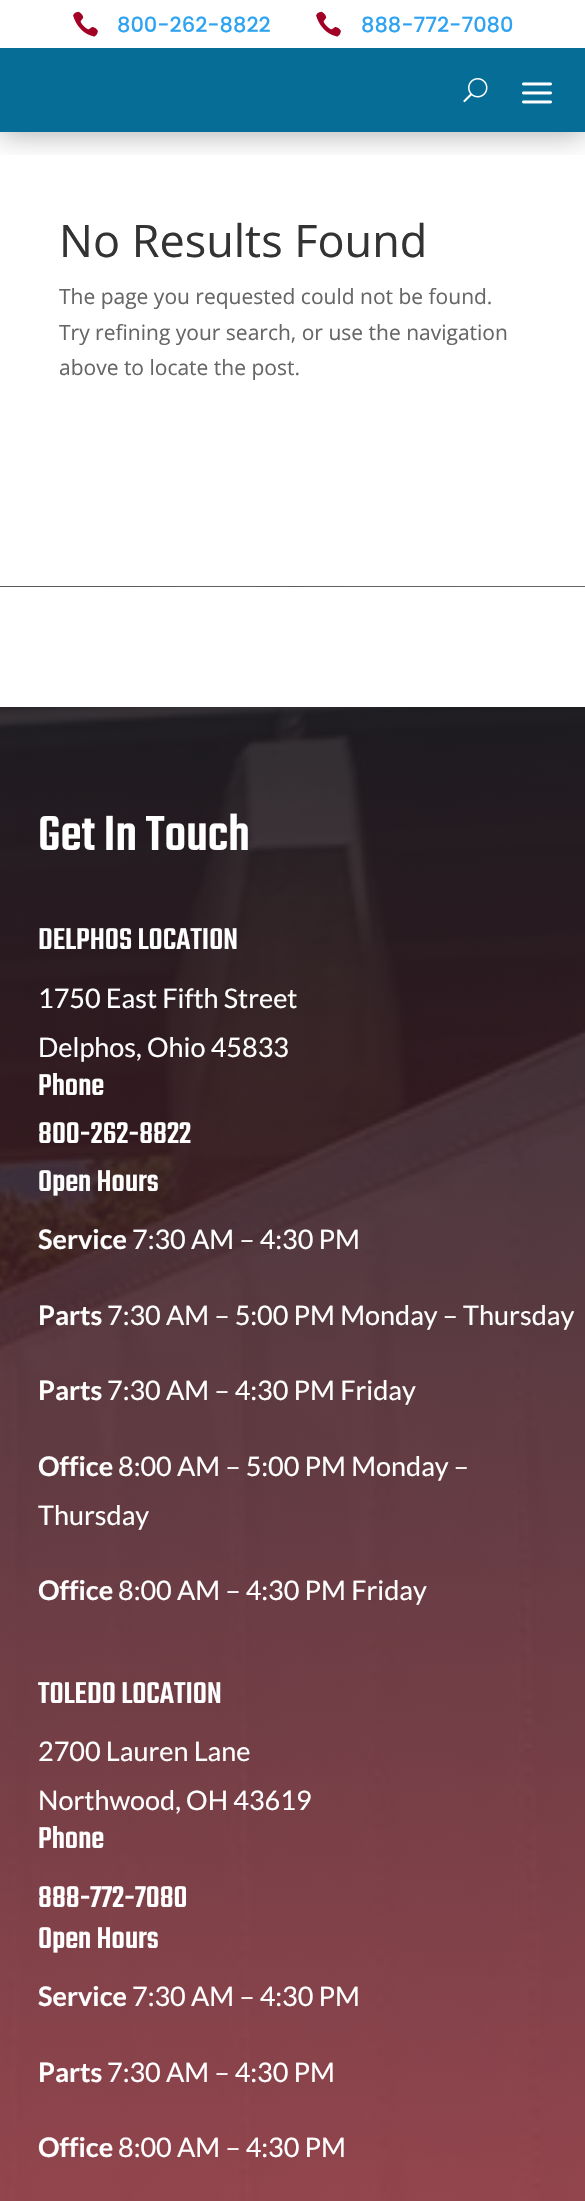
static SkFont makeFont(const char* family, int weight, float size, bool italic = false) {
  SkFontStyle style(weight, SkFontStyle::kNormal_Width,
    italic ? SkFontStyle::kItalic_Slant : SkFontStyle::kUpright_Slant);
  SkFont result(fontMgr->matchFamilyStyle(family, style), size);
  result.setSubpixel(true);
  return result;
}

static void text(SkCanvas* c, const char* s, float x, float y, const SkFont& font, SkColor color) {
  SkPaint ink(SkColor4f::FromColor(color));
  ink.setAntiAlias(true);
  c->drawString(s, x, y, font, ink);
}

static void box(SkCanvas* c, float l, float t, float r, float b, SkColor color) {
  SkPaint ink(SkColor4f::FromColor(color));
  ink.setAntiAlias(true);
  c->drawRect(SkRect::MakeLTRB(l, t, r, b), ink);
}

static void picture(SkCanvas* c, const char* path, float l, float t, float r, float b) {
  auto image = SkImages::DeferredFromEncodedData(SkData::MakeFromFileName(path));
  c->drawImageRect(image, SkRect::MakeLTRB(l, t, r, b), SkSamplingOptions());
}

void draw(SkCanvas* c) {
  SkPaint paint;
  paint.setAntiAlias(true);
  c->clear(0xffffffff);
  c->save();
  c->clipRect(SkRect::MakeLTRB(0, 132, 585, 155));
  paint.setColor(0x4d000000);
  paint.setMaskFilter(SkMaskFilter::MakeBlur(kNormal_SkBlurStyle, 13.5f));
  c->drawRect(SkRect::MakeLTRB(0, -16, 585, 135), paint);
  paint.setMaskFilter(nullptr);
  c->restore();
  picture(c, "img_01.png", 73, 11, 98, 37);
  SkFont face1 = makeFont("Poppins", 500, 21);
  text(c, "800-262-8822", 117, 32, face1, 0xff2ea3f2);
  picture(c, "img_01.png", 316, 11, 341, 37);
  text(c, "888-772-7080", 361, 32, face1, 0xff2ea3f2);
  box(c, 0, 48, 585, 132, 0xff066d96);
  picture(c, "img_02.png", 463, 78, 488, 103);
  picture(c, "img_03.png", 522, 82, 552, 104);
  SkFont face2 = makeFont("Open Sans", 400, 45);
  text(c, "No Results Found", 59, 257, face2, 0xff333333);
  SkFont face3 = makeFont("Open Sans", 400, 21);
  text(c, "The page you requested could not be found.", 59, 304, face3, 0xff666666);
  text(c, "Try refining your search, or use the navigation", 59, 340, face3, 0xff666666);
  text(c, "above to locate the post.", 59, 375, face3, 0xff666666);
  picture(c, "img_04.png", 0, 586, 585, 2201);
  box(c, 0, 587, 585, 707, 0xffffffff);
  SkFont face4 = makeFont("Teko", 300, 54);
  text(c, "Get In Touch", 38, 850, face4, 0xffffffff);
  SkFont face5 = makeFont("Teko", 300, 33);
  text(c, "DELPHOS LOCATION", 38, 949, face5, 0xffffffff);
  SkFont face6 = makeFont("Lato", 400, 27);
  text(c, "1750 East Fifth Street", 38, 1008, face6, 0xffffffff);
  text(c, "Delphos, Ohio 45833", 38, 1057, face6, 0xffffffff);
  text(c, "Phone", 38, 1095, face5, 0xffffffff);
  text(c, "800-262-8822", 38, 1143, face5, 0xffffffff);
  text(c, "Open Hours", 38, 1191, face5, 0xffffffff);
  SkFont face7 = makeFont("Lato", 700, 27);
  text(c, "Service", 38, 1249, face7, 0xffffffff);
  text(c, "7:30 AM – 4:30 PM", 132, 1249, face6, 0xffffffff);
  text(c, "Parts", 38, 1325, face7, 0xffffffff);
  text(c, "7:30 AM – 5:00 PM Monday – Thursday", 107, 1325, face6, 0xffffffff);
  text(c, "Parts", 38, 1400, face7, 0xffffffff);
  text(c, "7:30 AM – 4:30 PM Friday", 107, 1400, face6, 0xffffffff);
  text(c, "Office", 38, 1476, face7, 0xffffffff);
  text(c, "8:00 AM – 5:00 PM Monday –", 118, 1476, face6, 0xffffffff);
  text(c, "Thursday", 38, 1525, face6, 0xffffffff);
  text(c, "Office", 38, 1600, face7, 0xffffffff);
  text(c, "8:00 AM – 4:30 PM Friday", 118, 1600, face6, 0xffffffff);
  text(c, "TOLEDO LOCATION", 38, 1703, face5, 0xffffffff);
  text(c, "2700 Lauren Lane", 38, 1761, face6, 0xffffffff);
  text(c, "Northwood, OH 43619", 38, 1810, face6, 0xffffffff);
  text(c, "Phone", 38, 1848, face5, 0xffffffff);
  text(c, "888-772-7080", 38, 1907, face5, 0xffffffff);
  text(c, "Open Hours", 38, 1948, face5, 0xffffffff);
  text(c, "Service", 38, 2006, face7, 0xffffffff);
  text(c, "7:30 AM – 4:30 PM", 132, 2006, face6, 0xffffffff);
  text(c, "Parts", 38, 2082, face7, 0xffffffff);
  text(c, "7:30 AM – 4:30 PM", 107, 2082, face6, 0xffffffff);
  text(c, "Office", 38, 2157, face7, 0xffffffff);
  text(c, "8:00 AM – 4:30 PM", 118, 2157, face6, 0xffffffff);
}
